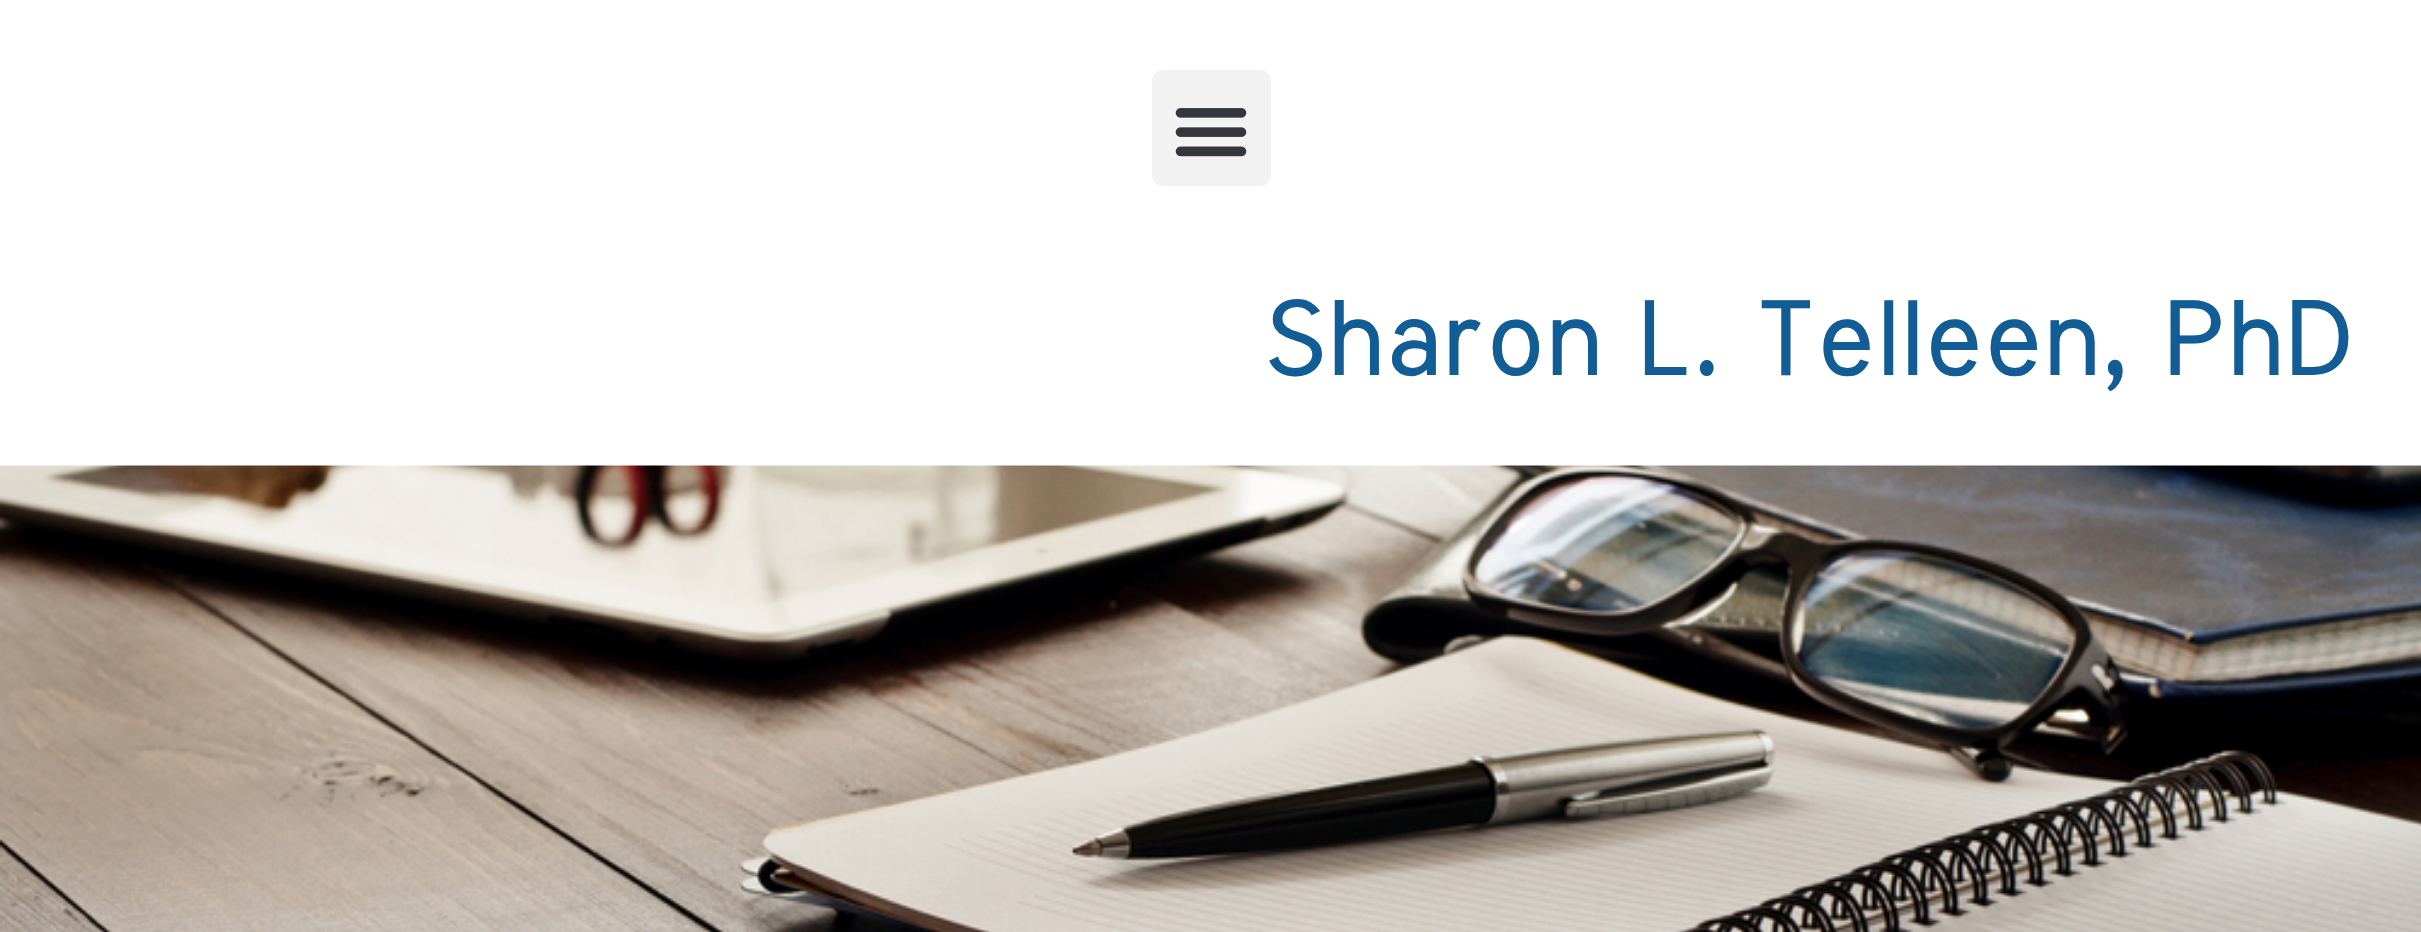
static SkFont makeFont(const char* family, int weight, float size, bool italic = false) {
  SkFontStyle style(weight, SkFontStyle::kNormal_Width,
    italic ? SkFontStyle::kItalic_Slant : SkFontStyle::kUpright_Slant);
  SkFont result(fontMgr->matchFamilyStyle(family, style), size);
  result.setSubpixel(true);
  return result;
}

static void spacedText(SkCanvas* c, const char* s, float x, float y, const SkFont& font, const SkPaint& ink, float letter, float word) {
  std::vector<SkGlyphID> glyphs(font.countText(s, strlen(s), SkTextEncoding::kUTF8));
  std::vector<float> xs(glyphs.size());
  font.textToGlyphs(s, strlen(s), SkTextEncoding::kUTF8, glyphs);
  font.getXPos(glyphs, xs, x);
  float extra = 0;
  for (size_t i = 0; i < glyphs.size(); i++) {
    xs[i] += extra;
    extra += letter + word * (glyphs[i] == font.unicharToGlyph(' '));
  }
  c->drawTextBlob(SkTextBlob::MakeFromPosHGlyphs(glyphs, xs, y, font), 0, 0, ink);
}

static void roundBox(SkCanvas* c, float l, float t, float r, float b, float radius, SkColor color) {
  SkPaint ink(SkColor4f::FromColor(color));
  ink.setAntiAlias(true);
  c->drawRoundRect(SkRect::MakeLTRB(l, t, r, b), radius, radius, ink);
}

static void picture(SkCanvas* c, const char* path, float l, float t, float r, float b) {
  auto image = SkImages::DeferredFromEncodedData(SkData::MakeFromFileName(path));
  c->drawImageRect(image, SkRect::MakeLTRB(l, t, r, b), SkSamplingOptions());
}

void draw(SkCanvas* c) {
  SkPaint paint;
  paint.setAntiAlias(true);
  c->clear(0xffffffff);
  roundBox(c, 1152, 70, 1271, 186, 11, 0xfff2f2f2);
  picture(c, "img_01.png", 1175, 108, 1247, 157);
  SkFont face1 = makeFont("Meera Inimai", 400, 105);
  paint.setColor(0xff125d96);
  spacedText(c, "Sharon L. Telleen, PhD", 1262, 375, face1, paint, 3.5f, 0);
  picture(c, "img_02.png", 0, 465, 2421, 932);
}
